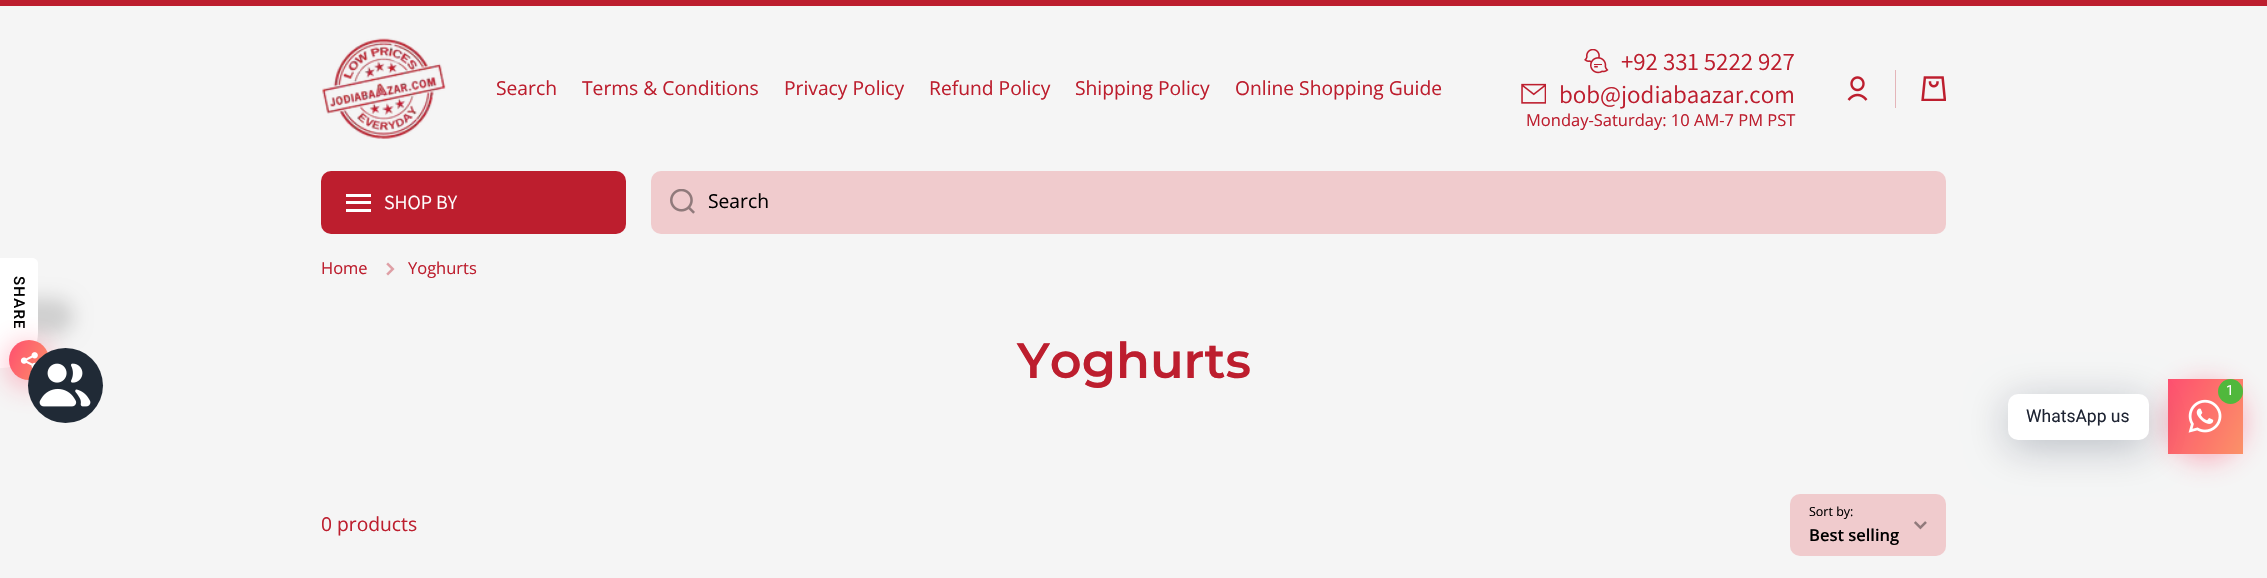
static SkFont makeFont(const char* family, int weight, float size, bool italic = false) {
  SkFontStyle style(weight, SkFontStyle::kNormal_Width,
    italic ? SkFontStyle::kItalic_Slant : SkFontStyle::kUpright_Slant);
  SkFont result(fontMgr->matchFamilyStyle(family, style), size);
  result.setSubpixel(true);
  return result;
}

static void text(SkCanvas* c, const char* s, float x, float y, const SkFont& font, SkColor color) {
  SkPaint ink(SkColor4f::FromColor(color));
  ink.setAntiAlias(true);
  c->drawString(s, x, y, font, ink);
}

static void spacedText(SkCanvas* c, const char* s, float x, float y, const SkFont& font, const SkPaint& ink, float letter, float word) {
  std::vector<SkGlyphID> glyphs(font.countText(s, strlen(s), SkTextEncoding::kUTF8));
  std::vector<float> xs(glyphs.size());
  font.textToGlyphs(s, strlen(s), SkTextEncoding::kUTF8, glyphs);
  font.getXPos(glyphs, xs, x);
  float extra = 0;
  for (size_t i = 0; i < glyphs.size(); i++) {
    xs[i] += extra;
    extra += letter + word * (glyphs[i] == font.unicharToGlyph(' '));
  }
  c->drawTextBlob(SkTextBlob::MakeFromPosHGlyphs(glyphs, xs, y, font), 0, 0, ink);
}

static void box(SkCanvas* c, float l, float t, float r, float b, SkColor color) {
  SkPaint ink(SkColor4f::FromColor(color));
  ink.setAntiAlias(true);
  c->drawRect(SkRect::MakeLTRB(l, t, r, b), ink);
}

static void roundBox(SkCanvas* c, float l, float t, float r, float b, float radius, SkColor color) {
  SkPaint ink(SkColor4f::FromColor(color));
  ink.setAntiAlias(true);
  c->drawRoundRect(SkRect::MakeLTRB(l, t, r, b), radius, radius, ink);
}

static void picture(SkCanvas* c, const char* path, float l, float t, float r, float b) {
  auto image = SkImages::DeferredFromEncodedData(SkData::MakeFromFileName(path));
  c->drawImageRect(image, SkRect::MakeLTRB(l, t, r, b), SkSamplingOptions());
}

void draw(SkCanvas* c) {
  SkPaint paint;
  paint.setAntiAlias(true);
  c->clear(0xfff5f5f5);
  box(c, 0, 0, 2267, 6, 0xffbd1e2e);
  picture(c, "img_01.png", 322, 38, 446, 139);
  SkFont face1 = makeFont("Open Sans", 400, 19.25f);
  text(c, "Search", 496, 95, face1, 0xffbd1e2e);
  text(c, "Terms & Conditions", 582, 95, face1, 0xffbd1e2e);
  text(c, "Privacy Policy", 784, 95, face1, 0xffbd1e2e);
  text(c, "Refund Policy", 929, 95, face1, 0xffbd1e2e);
  text(c, "Shipping Policy", 1075, 95, face1, 0xffbd1e2e);
  text(c, "Online Shopping Guide", 1235, 95, face1, 0xffbd1e2e);
  picture(c, "img_02.png", 1584, 49, 1609, 74);
  SkFont face2 = makeFont("Assistant", 400, 25);
  text(c, "+92 331 5222 927", 1621, 70, face2, 0xffbd1e2e);
  picture(c, "img_03.png", 1521, 83, 1546, 104);
  text(c, "bob@jodiabaazar.com", 1559, 103, face2, 0xffbd1e2e);
  SkFont face3 = makeFont("Open Sans", 400, 16.5f);
  text(c, "Monday-Saturday: 10 AM-7 PM PST", 1526, 126, face3, 0xffbd1e2e);
  picture(c, "img_04.png", 1847, 76, 1868, 101);
  box(c, 1895, 70, 1896, 108, 0xffe4b5b9);
  picture(c, "img_05.png", 1921, 76, 1946, 101);
  roundBox(c, 321, 171, 626, 234, 10, 0xffbd1e2e);
  box(c, 346, 194, 371, 197, 0xffffffff);
  box(c, 346, 201, 371, 204, 0xffffffff);
  box(c, 346, 209, 371, 212, 0xffffffff);
  SkFont face4 = makeFont("Assistant", 400, 20);
  text(c, "SHOP BY", 384, 209, face4, 0xffffffff);
  roundBox(c, 651, 171, 1946, 234, 10, 0xfff0cbcd);
  picture(c, "img_06.png", 670, 189, 695, 214);
  text(c, "Search", 708, 208, face1, 0xff000000);
  text(c, "Home", 321, 274, face3, 0xffbd1e2e);
  picture(c, "img_07.png", 386, 262, 395, 276);
  text(c, "Yoghurts", 408, 274, face3, 0xffbd1e2e);
  SkFont face5 = makeFont("Montserrat", 600, 49.5f);
  text(c, "Yoghurts", 1017, 378, face5, 0xffbd1e2e);
  text(c, "0 products", 321, 531, face1, 0xffbd1e2e);
  roundBox(c, 1790, 494, 1946, 556, 10, 0xfff0cbcd);
  SkFont face6 = makeFont("Open Sans", 400, 12.5f);
  text(c, "Sort by:", 1809, 516, face6, 0xff000000);
  picture(c, "img_08.png", 1914, 521, 1927, 530);
  SkFont face7 = makeFont("Open Sans", 600, 16.5f);
  text(c, "Best selling", 1809, 541, face7, 0xff000000);
  paint.setColor(0x26000000);
  paint.setMaskFilter(SkMaskFilter::MakeBlur(kNormal_SkBlurStyle, 9));
  c->drawRoundRect(SkRect::MakeLTRB(-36, 298, 74, 335), 35, 35, paint);
  paint.setMaskFilter(nullptr);
  paint.setColor(0xffffffff);
  c->drawPath(SkPathBuilder().moveTo(0, 368).lineTo(0, 258).lineTo(32, 258).cubicTo(35, 258, 38, 260, 38, 263).lineTo(38, 333).cubicTo(38, 352, 22, 368, 2, 368).close().detach(), paint);
  SkFont face8 = makeFont("Roboto", 500, 15);
  paint.setColor(0xff000000);
  c->save();
  c->rotate(90, 14, 276);
  spacedText(c, "SHARE", 14, 276, face8, paint, 1.25f, 0);
  c->restore();
  paint.setColor(0x80ff4e6f);
  paint.setMaskFilter(SkMaskFilter::MakeBlur(kNormal_SkBlurStyle, 15));
  c->drawRoundRect(SkRect::MakeLTRB(9, 345, 49, 385), 20, 20, paint);
  paint.setMaskFilter(nullptr);
  {
    const SkColor colors[] = {0xffff4e6f, 0xfffb9168};
    const float stops[] = {0, 1};
    const SkPoint ends[] = {{4.7f, 349}, {53, 371}};
    paint.setShader(SkGradientShader::MakeLinear(ends, colors, stops, 2, SkTileMode::kClamp));
    paint.setAlpha(255);
  }
  c->drawCircle(29, 360, 20, paint);
  picture(c, "img_09.png", 20, 352, 38, 369);
  paint.setShader(nullptr);
  paint.setColor(0x80ff4e6f);
  paint.setMaskFilter(SkMaskFilter::MakeBlur(kNormal_SkBlurStyle, 15));
  c->drawRoundRect(SkRect::MakeLTRB(2168, 384, 2243, 459), 37.5f, 37.5f, paint);
  paint.setMaskFilter(nullptr);
  {
    const SkColor colors[] = {0xffff4e6f, 0xfffb9168};
    const float stops[] = {0, 1};
    const SkPoint ends[] = {{2160, 395}, {2250, 437}};
    paint.setShader(SkGradientShader::MakeLinear(ends, colors, stops, 2, SkTileMode::kClamp));
    paint.setAlpha(255);
  }
  c->drawRect(SkRect::MakeLTRB(2168, 379, 2243, 454), paint);
  paint.setShader(nullptr);
  paint.setColor(0x3d00122e);
  paint.setMaskFilter(SkMaskFilter::MakeBlur(kNormal_SkBlurStyle, 20));
  c->drawRoundRect(SkRect::MakeLTRB(2008, 401, 2149, 448), 10, 10, paint);
  paint.setMaskFilter(nullptr);
  picture(c, "img_10.png", 2188, 399, 2222, 433);
  paint.setColor(0xff50b83c);
  c->drawCircle(2230.5f, 391.5f, 12.5f, paint);
  SkFont face9 = makeFont("Roboto", 400, 14);
  text(c, "1", 2226, 395, face9, 0xffffffff);
  roundBox(c, 2008, 394, 2149, 440, 10, 0xffffffff);
  SkFont face10 = makeFont("Roboto", 400, 17.5f);
  text(c, "WhatsApp us", 2026, 422, face10, 0xff1e2433);
  paint.setColor(0xff202a36);
  c->drawCircle(65.5f, 385.5f, 37.5f, paint);
  picture(c, "img_11.png", 39, 363, 91, 407);
}
